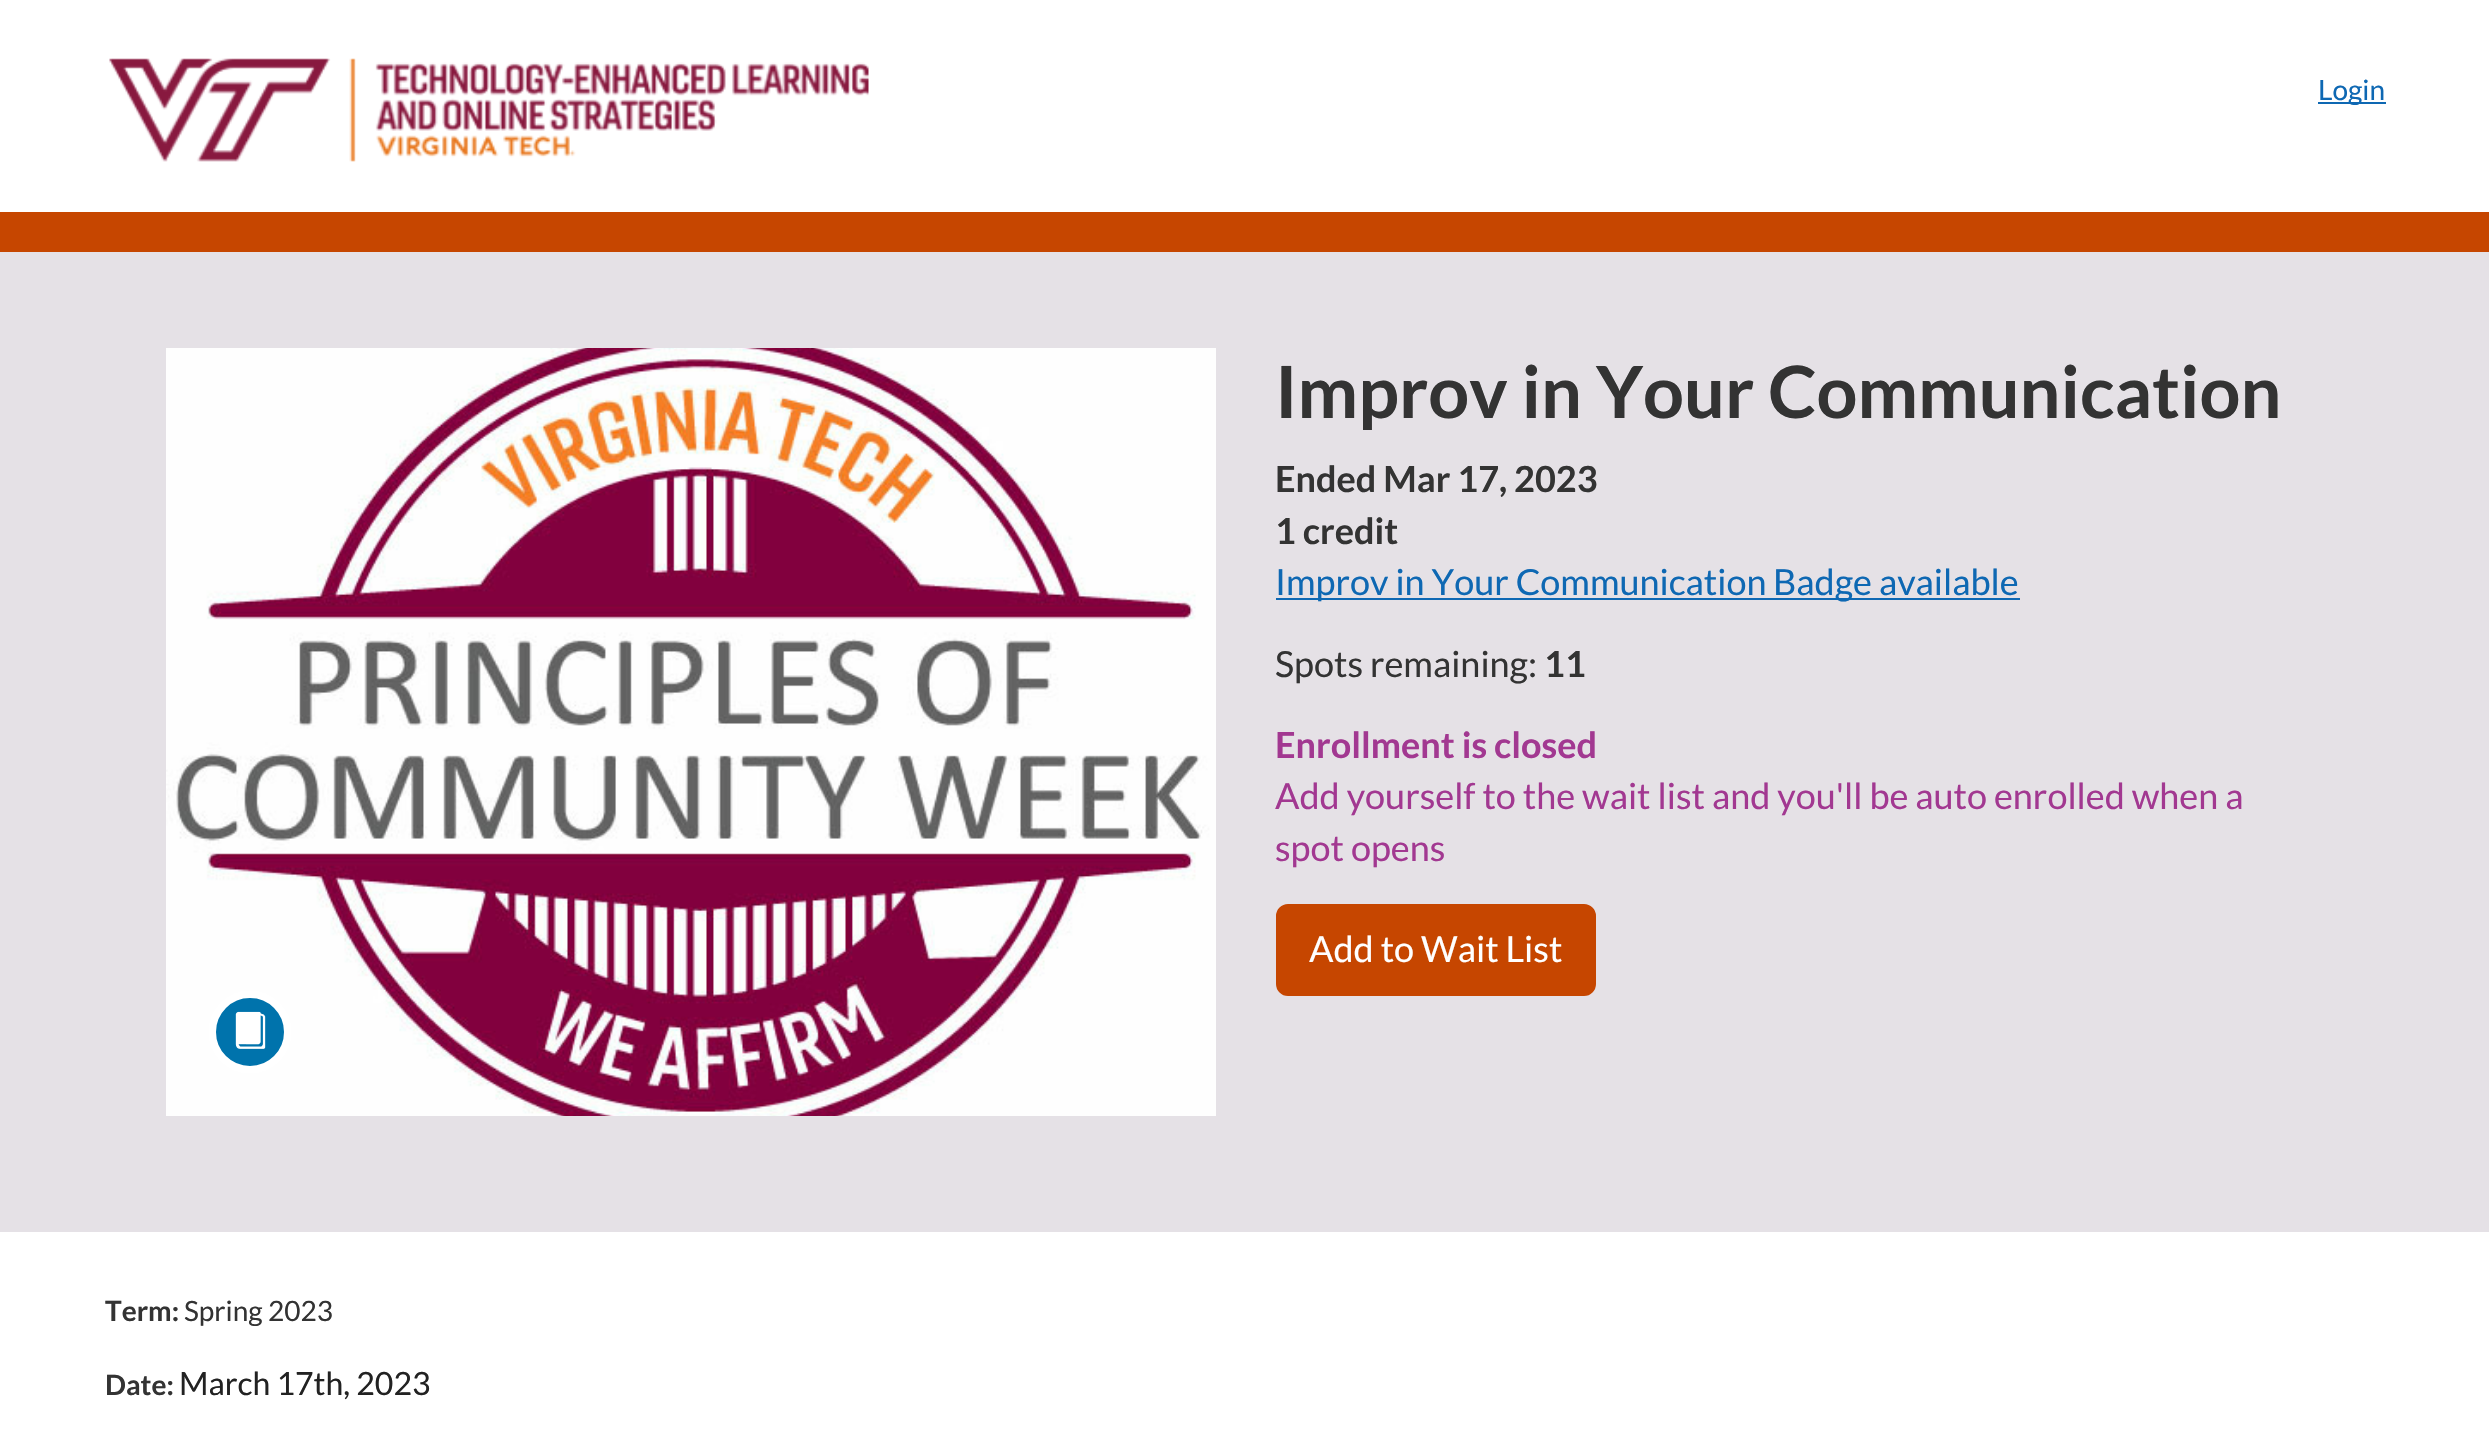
static SkFont makeFont(const char* family, int weight, float size, bool italic = false) {
  SkFontStyle style(weight, SkFontStyle::kNormal_Width,
    italic ? SkFontStyle::kItalic_Slant : SkFontStyle::kUpright_Slant);
  SkFont result(fontMgr->matchFamilyStyle(family, style), size);
  result.setSubpixel(true);
  return result;
}

static void text(SkCanvas* c, const char* s, float x, float y, const SkFont& font, SkColor color) {
  SkPaint ink(SkColor4f::FromColor(color));
  ink.setAntiAlias(true);
  c->drawString(s, x, y, font, ink);
}

static void box(SkCanvas* c, float l, float t, float r, float b, SkColor color) {
  SkPaint ink(SkColor4f::FromColor(color));
  ink.setAntiAlias(true);
  c->drawRect(SkRect::MakeLTRB(l, t, r, b), ink);
}

static void picture(SkCanvas* c, const char* path, float l, float t, float r, float b) {
  auto image = SkImages::DeferredFromEncodedData(SkData::MakeFromFileName(path));
  c->drawImageRect(image, SkRect::MakeLTRB(l, t, r, b), SkSamplingOptions());
}

void draw(SkCanvas* c) {
  SkPaint paint;
  paint.setAntiAlias(true);
  c->clear(0xffffffff);
  picture(c, "img_01.png", 109, 58, 869, 162);
  box(c, 2318, 102, 2386, 104, 0xff0e68b3);
  SkFont face1 = makeFont("Lato", 400, 28);
  text(c, "Login", 2318, 100, face1, 0xff0e68b3);
  box(c, 0, 212, 2489, 252, 0xffc64600);
  box(c, 0, 252, 2489, 1232, 0xffe5e1e6);
  picture(c, "img_02.png", 166, 348, 1216, 1116);
  paint.setColor(0xff0073ac);
  c->drawCircle(250, 1032, 38, paint);
  paint.setStyle(SkPaint::kStroke_Style);
  paint.setStrokeWidth(8);
  paint.setColor(0xffffffff);
  c->drawCircle(250, 1032, 38, paint);
  picture(c, "img_03.png", 235, 1011, 266, 1049);
  SkFont face2 = makeFont("Lato", 700, 72);
  text(c, "Improv in Your Communication", 1275, 418, face2, 0xff333333);
  SkFont face3 = makeFont("Lato", 700, 36);
  text(c, "Ended Mar 17, 2023", 1275, 492, face3, 0xff333333);
  text(c, "1 credit", 1275, 544, face3, 0xff333333);
  box(c, 1276, 598, 2020, 600, 0xff0e68b3);
  SkFont face4 = makeFont("Lato", 400, 36);
  text(c, "Improv in Your Communication", 1275, 595, face4, 0xff0e68b3);
  text(c, "Badge available", 1773, 595, face4, 0xff0e68b3);
  text(c, "Spots remaining:", 1275, 677, face4, 0xff333333);
  text(c, "11", 1544, 677, face3, 0xff333333);
  text(c, "Enrollment is closed", 1275, 758, face3, 0xffa23891);
  text(c, "Add yourself to the wait list and you'll be auto enrolled when a", 1275, 809, face4, 0xffa23891);
  text(c, "spot opens", 1275, 861, face4, 0xffa23891);
  paint.setStyle(SkPaint::kFill_Style);
  paint.setColor(0xffc64600);
  c->drawRoundRect(SkRect::MakeLTRB(1277, 905, 1595, 995), 11, 11, paint);
  paint.setStyle(SkPaint::kStroke_Style);
  paint.setStrokeWidth(2);
  c->drawRoundRect(SkRect::MakeLTRB(1277, 905, 1595, 995), 11, 11, paint);
  text(c, "Add to Wait List", 1309, 962, face4, 0xffffffff);
  SkFont face5 = makeFont("Lato", 700, 28);
  text(c, "Term:", 105, 1321, face5, 0xff333333);
  text(c, "Spring 2023", 184, 1321, face1, 0xff333333);
  text(c, "Date:", 105, 1395, face5, 0xff333333);
  SkFont face6 = makeFont("Lato", 400, 32);
  text(c, "March 17th, 2023", 179, 1395, face6, 0xff222222);
}
